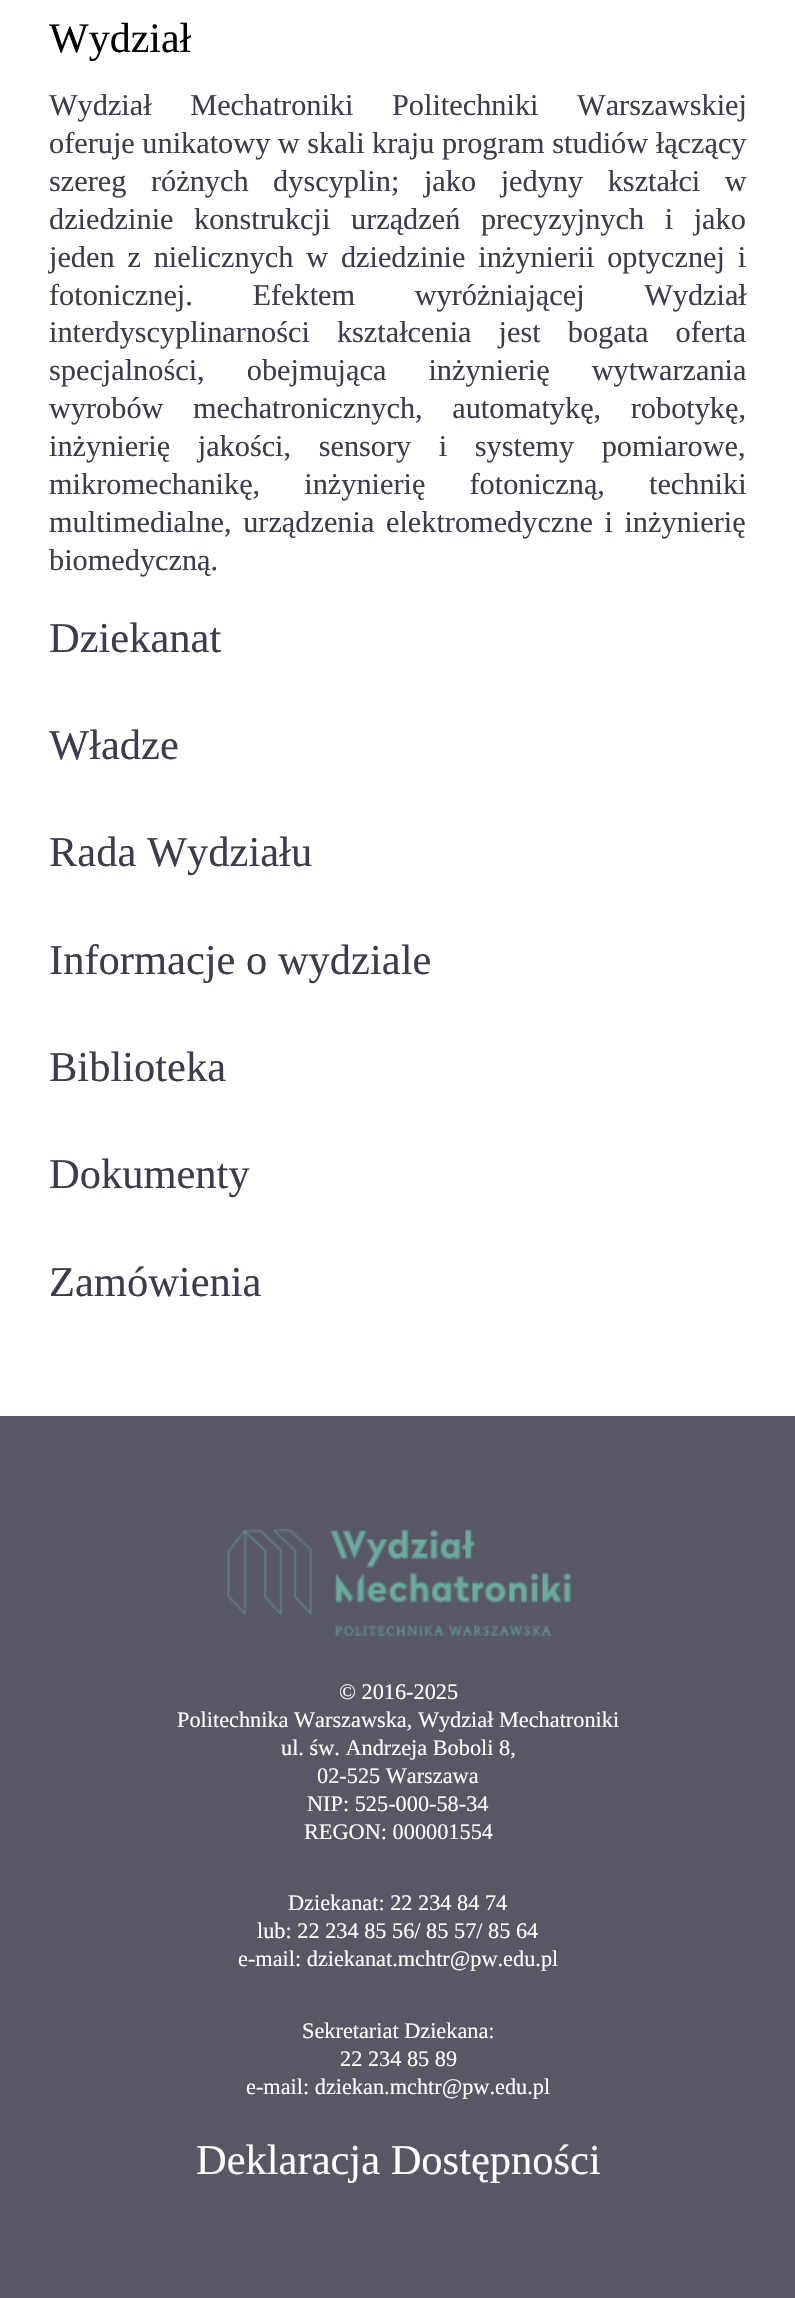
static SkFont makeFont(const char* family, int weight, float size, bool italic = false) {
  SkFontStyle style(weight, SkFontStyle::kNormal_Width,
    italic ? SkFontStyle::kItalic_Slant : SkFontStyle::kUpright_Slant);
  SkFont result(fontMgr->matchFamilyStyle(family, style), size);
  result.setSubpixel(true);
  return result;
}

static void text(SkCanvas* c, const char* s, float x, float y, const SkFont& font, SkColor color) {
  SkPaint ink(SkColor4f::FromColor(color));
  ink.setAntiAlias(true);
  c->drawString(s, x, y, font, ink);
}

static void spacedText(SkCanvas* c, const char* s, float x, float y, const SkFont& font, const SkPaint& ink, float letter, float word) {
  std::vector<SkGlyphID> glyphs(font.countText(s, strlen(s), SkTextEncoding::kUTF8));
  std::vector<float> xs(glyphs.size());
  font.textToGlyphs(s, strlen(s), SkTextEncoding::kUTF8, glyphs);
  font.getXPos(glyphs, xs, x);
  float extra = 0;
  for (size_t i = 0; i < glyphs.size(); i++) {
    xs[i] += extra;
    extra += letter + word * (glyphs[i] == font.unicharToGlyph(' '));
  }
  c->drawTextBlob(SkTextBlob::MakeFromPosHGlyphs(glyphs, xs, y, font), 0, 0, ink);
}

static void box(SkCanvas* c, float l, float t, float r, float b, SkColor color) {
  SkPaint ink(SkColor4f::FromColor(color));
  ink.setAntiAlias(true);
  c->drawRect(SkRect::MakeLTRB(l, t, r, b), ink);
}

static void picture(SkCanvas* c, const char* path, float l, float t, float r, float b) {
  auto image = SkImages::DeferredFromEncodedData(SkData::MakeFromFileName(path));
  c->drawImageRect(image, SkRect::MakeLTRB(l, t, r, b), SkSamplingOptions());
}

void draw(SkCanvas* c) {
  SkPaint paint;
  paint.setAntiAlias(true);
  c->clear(0xffffffff);
  SkFont face1 = makeFont("Liberation Serif", 400, 42);
  text(c, "Wydział", 49, 52, face1, 0xff000000);
  SkFont face2 = makeFont("Liberation Serif", 400, 30.3f);
  paint.setColor(0xff3c3c4c);
  spacedText(c, "Wydział Mechatroniki Politechniki Warszawskiej", 49, 115, face2, paint, 0, 31);
  text(c, "oferuje unikatowy w skali kraju program studiów łączący", 49, 153, face2, 0xff3c3c4c);
  spacedText(c, "szereg różnych dyscyplin; jako jedyny kształci w", 49, 191, face2, paint, 0, 17);
  spacedText(c, "dziedzinie konstrukcji urządzeń precyzyjnych i jako", 49, 229, face2, paint, 0, 13);
  spacedText(c, "jeden z nielicznych w dziedzinie inżynierii optycznej i", 49, 267, face2, paint, 0, 5.25f);
  spacedText(c, "fotonicznej. Efektem wyróżniającej Wydział", 49, 305, face2, paint, 0, 52);
  spacedText(c, "interdyscyplinarności kształcenia jest bogata oferta", 49, 342, face2, paint, 0, 19.5f);
  spacedText(c, "specjalności, obejmująca inżynierię wytwarzania", 49, 380, face2, paint, 0, 34.5f);
  spacedText(c, "wyrobów mechatronicznych, automatykę, robotykę,", 49, 418, face2, paint, 0, 22);
  spacedText(c, "inżynierię jakości, sensory i systemy pomiarowe,", 49, 456, face2, paint, 0, 20);
  spacedText(c, "mikromechanikę, inżynierię fotoniczną, techniki", 49, 494, face2, paint, 0, 36.5f);
  spacedText(c, "multimedialne, urządzenia elektromedyczne i inżynierię", 49, 532, face2, paint, 0, 4);
  text(c, "biomedyczną.", 49, 570, face2, 0xff3c3c4c);
  SkFont face3 = makeFont("Liberation Serif", 400, 42.5f);
  text(c, "Dziekanat", 49, 652, face3, 0xff3c3c4c);
  text(c, "Władze", 49, 759, face3, 0xff3c3c4c);
  text(c, "Rada Wydziału", 49, 866, face3, 0xff3c3c4c);
  text(c, "Informacje o wydziale", 49, 974, face3, 0xff3c3c4c);
  text(c, "Biblioteka", 49, 1081, face3, 0xff3c3c4c);
  text(c, "Dokumenty", 49, 1188, face3, 0xff3c3c4c);
  text(c, "Zamówienia", 49, 1296, face3, 0xff3c3c4c);
  box(c, 0, 1416, 795, 2298, 0xff585865);
  picture(c, "img_01.png", 227, 1529, 571, 1636);
  SkFont face4 = makeFont("Liberation Serif", 400, 22.3f);
  text(c, "© 2016-2025", 339, 1699, face4, 0xfffefefe);
  text(c, "Politechnika Warszawska, Wydział Mechatroniki", 177, 1727, face4, 0xfffefefe);
  text(c, "ul. św. Andrzeja Boboli 8,", 281, 1755, face4, 0xfffefefe);
  text(c, "02-525 Warszawa", 317, 1783, face4, 0xfffefefe);
  text(c, "NIP: 525-000-58-34", 307, 1811, face4, 0xfffefefe);
  text(c, "REGON: 000001554", 304, 1839, face4, 0xfffefefe);
  text(c, "Dziekanat: 22 234 84 74", 288, 1910, face4, 0xfffefefe);
  text(c, "lub: 22 234 85 56/ 85 57/ 85 64", 257, 1938, face4, 0xfffefefe);
  text(c, "e-mail: dziekanat.mchtr@pw.edu.pl", 238, 1966, face4, 0xfffefefe);
  text(c, "Sekretariat Dziekana:", 302, 2038, face4, 0xfffefefe);
  text(c, "22 234 85 89", 340, 2066, face4, 0xfffefefe);
  text(c, "e-mail: dziekan.mchtr@pw.edu.pl", 246, 2094, face4, 0xfffefefe);
  text(c, "Deklaracja Dostępności", 196, 2174, face3, 0xfffefefe);
}
